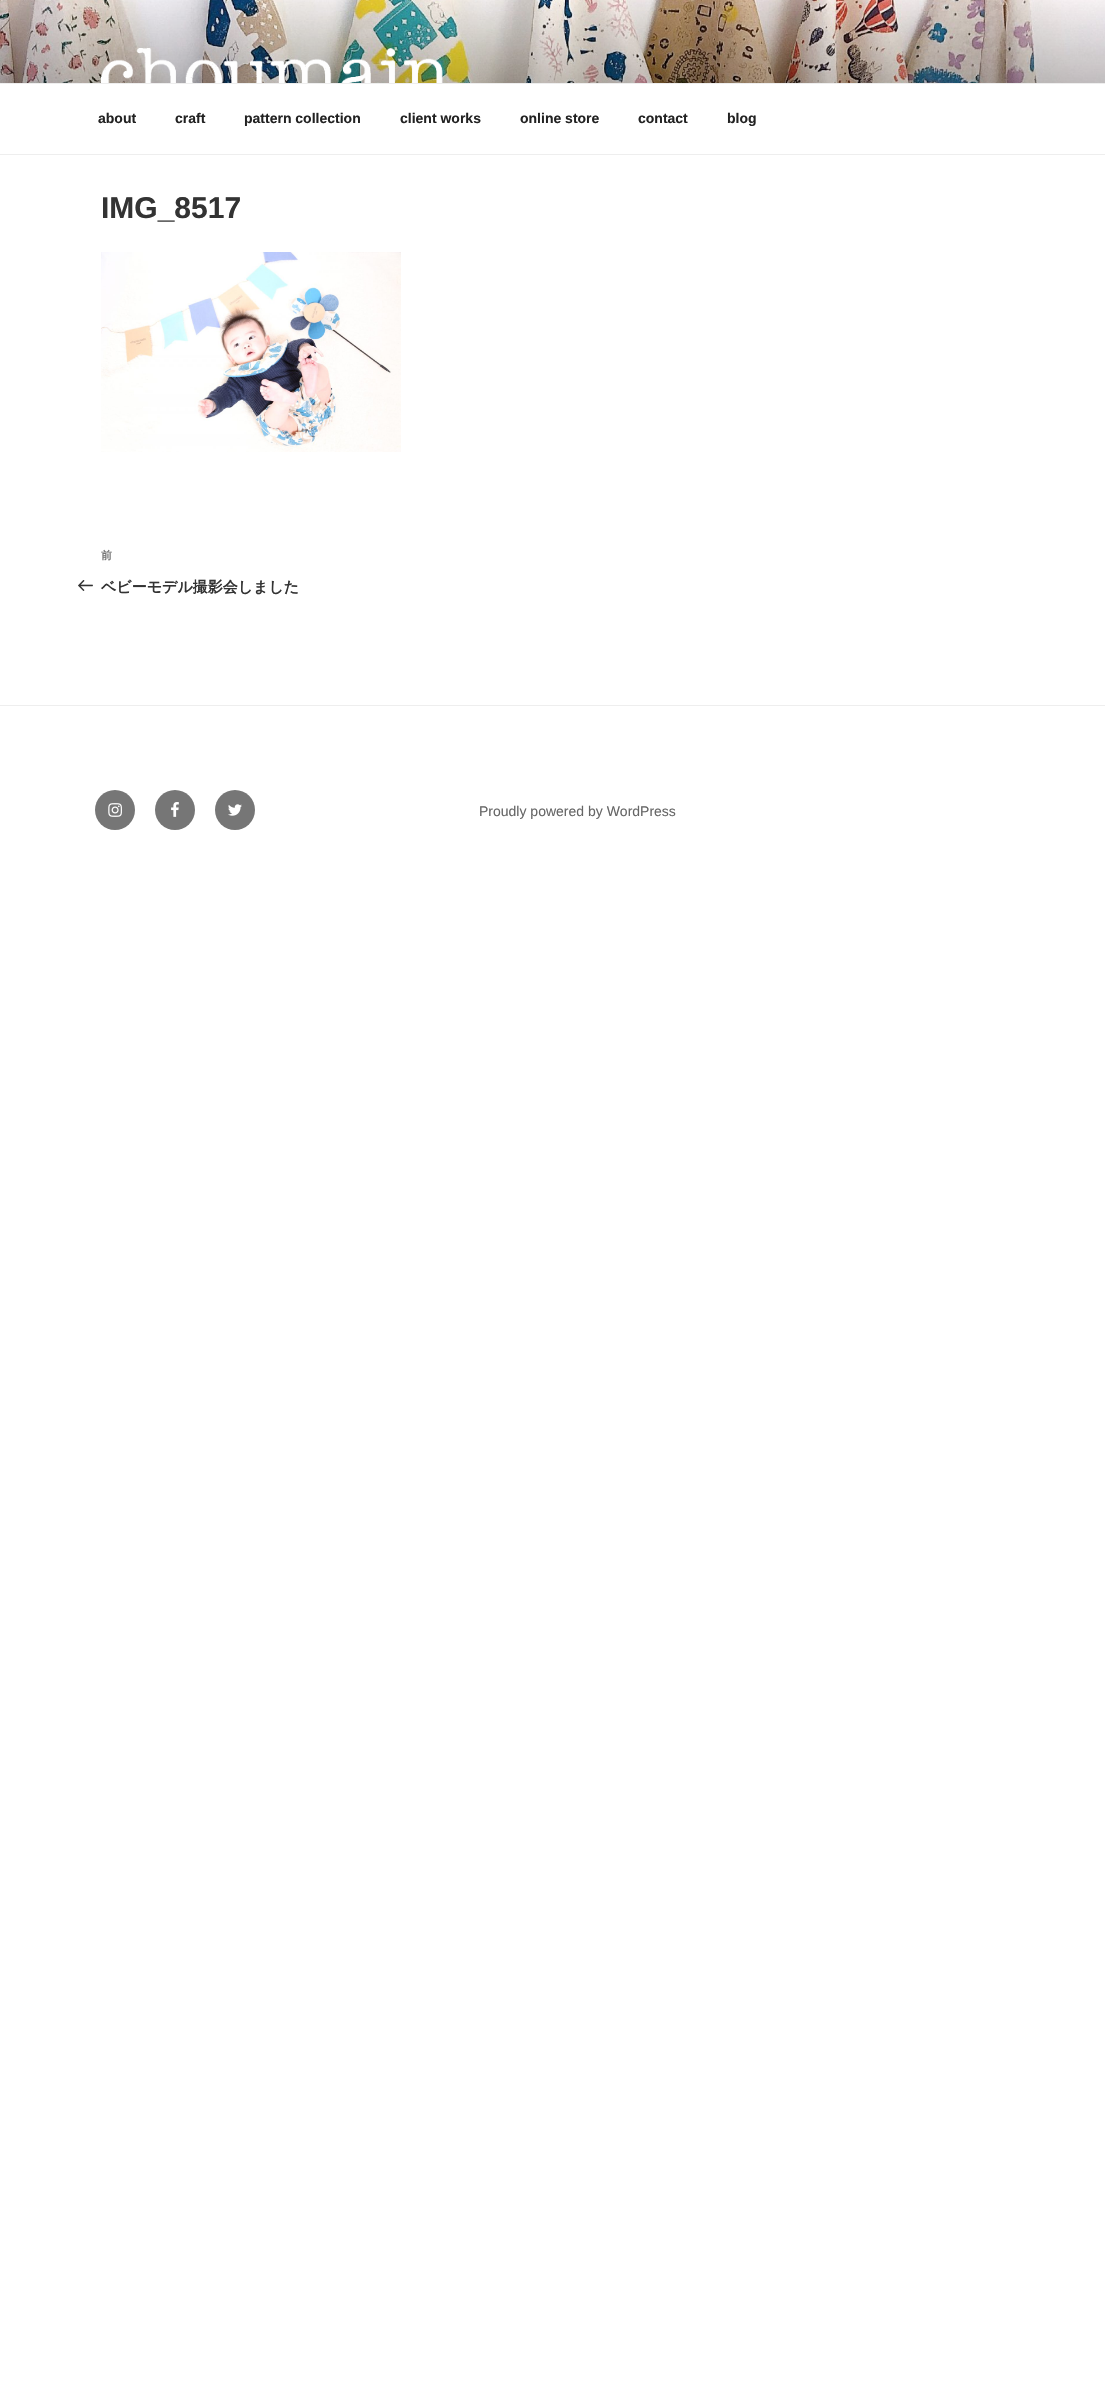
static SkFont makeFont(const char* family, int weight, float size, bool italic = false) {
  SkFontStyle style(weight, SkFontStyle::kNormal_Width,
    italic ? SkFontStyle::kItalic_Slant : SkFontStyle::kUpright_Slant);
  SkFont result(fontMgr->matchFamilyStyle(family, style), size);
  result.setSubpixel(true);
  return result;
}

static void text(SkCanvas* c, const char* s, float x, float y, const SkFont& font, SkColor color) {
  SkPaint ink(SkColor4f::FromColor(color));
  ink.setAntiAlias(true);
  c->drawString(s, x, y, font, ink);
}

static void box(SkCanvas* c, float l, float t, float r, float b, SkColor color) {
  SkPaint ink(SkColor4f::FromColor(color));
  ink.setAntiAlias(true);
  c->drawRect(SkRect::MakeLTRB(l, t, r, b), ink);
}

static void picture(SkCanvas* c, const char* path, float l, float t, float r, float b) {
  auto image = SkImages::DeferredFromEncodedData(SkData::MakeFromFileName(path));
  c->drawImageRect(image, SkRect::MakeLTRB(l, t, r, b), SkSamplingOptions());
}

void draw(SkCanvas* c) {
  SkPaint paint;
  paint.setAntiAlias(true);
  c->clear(0xffffffff);
  picture(c, "img_01.png", 0, 0, 1105, 83);
  picture(c, "img_02.png", 101, 48, 443, 83);
  box(c, 0, 83, 1105, 84, 0xffeeeeee);
  box(c, 0, 154, 1105, 155, 0xffeeeeee);
  SkFont face1 = makeFont("Liberation Sans", 700, 14);
  text(c, "about", 98, 123, face1, 0xff222222);
  text(c, "craft", 175, 123, face1, 0xff222222);
  text(c, "pattern collection", 244, 123, face1, 0xff222222);
  text(c, "client works", 400, 123, face1, 0xff222222);
  text(c, "online store", 520, 123, face1, 0xff222222);
  text(c, "contact", 638, 123, face1, 0xff222222);
  text(c, "blog", 727, 123, face1, 0xff222222);
  SkFont face2 = makeFont("Liberation Sans", 700, 30);
  text(c, "IMG_8517", 101, 218, face2, 0xff333333);
  picture(c, "img_03.png", 101, 252, 401, 452);
  SkFont face3 = makeFont("WenQuanYi Zen Hei", 700, 11);
  text(c, "前", 101, 559, face3, 0xff767676);
  picture(c, "img_04.png", 78, 580, 93, 591);
  SkFont face4 = makeFont("WenQuanYi Zen Hei", 700, 15);
  text(c, "ベビーモデル撮影会しました", 101, 592, face4, 0xff333333);
  box(c, 0, 705, 1105, 706, 0xffeeeeee);
  paint.setColor(0xff767676);
  c->drawCircle(115, 810, 20, paint);
  picture(c, "img_05.png", 108, 803, 122, 817);
  c->drawCircle(175, 810, 20, paint);
  picture(c, "img_06.png", 171, 802, 179, 817);
  c->drawCircle(235, 810, 20, paint);
  picture(c, "img_07.png", 228, 804, 242, 816);
  SkFont face5 = makeFont("Liberation Sans", 400, 14);
  text(c, "Proudly powered by WordPress", 479, 816, face5, 0xff666666);
}
